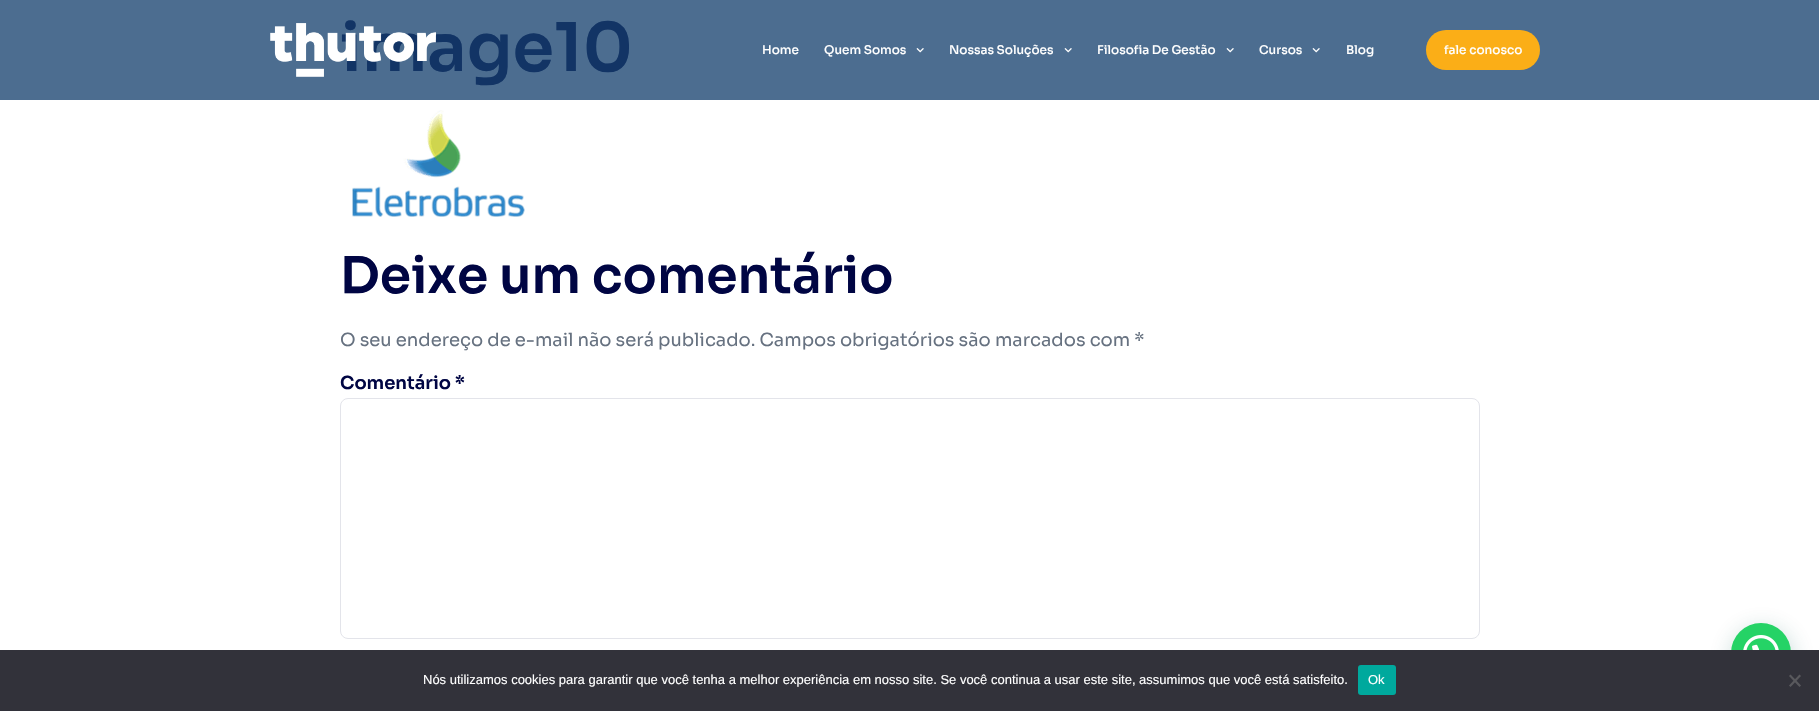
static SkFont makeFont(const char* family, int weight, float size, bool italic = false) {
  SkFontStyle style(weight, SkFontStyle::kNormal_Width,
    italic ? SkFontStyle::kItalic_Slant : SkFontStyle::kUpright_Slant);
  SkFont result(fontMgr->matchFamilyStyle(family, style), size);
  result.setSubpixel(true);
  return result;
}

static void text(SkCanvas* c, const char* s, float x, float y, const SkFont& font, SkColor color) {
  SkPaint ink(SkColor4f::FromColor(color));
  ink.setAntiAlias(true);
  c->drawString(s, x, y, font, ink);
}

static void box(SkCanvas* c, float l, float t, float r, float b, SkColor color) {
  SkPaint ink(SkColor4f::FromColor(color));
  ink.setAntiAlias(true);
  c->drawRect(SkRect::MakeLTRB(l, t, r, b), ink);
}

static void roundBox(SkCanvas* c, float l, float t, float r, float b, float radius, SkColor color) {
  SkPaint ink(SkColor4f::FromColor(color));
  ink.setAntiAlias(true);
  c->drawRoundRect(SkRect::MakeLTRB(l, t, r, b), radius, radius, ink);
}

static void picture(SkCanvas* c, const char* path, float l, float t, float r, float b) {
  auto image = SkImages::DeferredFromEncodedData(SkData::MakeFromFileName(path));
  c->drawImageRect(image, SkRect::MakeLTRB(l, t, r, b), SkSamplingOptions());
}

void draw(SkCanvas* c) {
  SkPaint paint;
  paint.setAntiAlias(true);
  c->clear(0xffffffff);
  box(c, 0, 0, 1819, 100, 0xff4c6d90);
  SkFont face1 = makeFont("Sora", 600, 67);
  text(c, "image10", 340, 71, face1, 0xff123465);
  picture(c, "img_01.png", 352, 110, 525, 217);
  SkFont face2 = makeFont("Sora", 600, 50.5f);
  text(c, "Deixe um comentário", 340, 293, face2, 0xff000543);
  SkFont face3 = makeFont("Sora", 400, 18);
  text(c, "O seu endereço de e-mail não será publicado. Campos obrigatórios são marcados com *", 340, 346, face3, 0xff667180);
  SkFont face4 = makeFont("Sora", 600, 18);
  text(c, "Comentário *", 340, 389, face4, 0xff000543);
  paint.setStyle(SkPaint::kStroke_Style);
  paint.setStrokeWidth(1);
  paint.setColor(0xffe3e4ea);
  c->drawRoundRect(SkRect::MakeLTRB(340.5f, 398.5f, 1479.5f, 638.5f), 7.5f, 7.5f, paint);
  picture(c, "img_02.png", 270, 23, 436, 77);
  SkFont face5 = makeFont("Sora", 500, 12);
  text(c, "Home", 762, 54, face5, 0xffffffff);
  text(c, "Quem Somos", 824, 54, face5, 0xffffffff);
  picture(c, "img_03.png", 916, 48, 924, 53);
  text(c, "Nossas Soluções", 949, 54, face5, 0xffffffff);
  picture(c, "img_03.png", 1064, 48, 1072, 53);
  text(c, "Filosofia De Gestão", 1097, 54, face5, 0xffffffff);
  picture(c, "img_03.png", 1226, 48, 1234, 53);
  text(c, "Cursos", 1259, 54, face5, 0xffffffff);
  picture(c, "img_03.png", 1312, 48, 1320, 53);
  text(c, "Blog", 1346, 54, face5, 0xffffffff);
  roundBox(c, 1426, 30, 1540, 70, 20, 0xfffbae17);
  text(c, "fale conosco", 1444, 54, face5, 0xffffffff);
  paint.setStyle(SkPaint::kFill_Style);
  paint.setColor(0x3d075e54);
  paint.setMaskFilter(SkMaskFilter::MakeBlur(kNormal_SkBlurStyle, 12));
  c->drawRoundRect(SkRect::MakeLTRB(1732, 629, 1792, 689), 30, 30, paint);
  paint.setMaskFilter(nullptr);
  paint.setColor(0xff25d366);
  c->drawCircle(1761, 653, 30, paint);
  box(c, 0, 650, 1819, 711, 0xff32323a);
  SkFont face6 = makeFont("Liberation Sans", 400, 13);
  text(c, "Nós utilizamos cookies para garantir que você tenha a melhor experiência em nosso site. Se você continua a usar este site, assumimos que você está satisfeito.", 423, 684, face6, 0xffffffff);
  roundBox(c, 1358, 665, 1396, 695, 3, 0xff00a99d);
  text(c, "Ok", 1368, 684, face6, 0xffffffff);
  paint.setColor(0xff59595d);
  c->drawPath(SkPathBuilder().moveTo(1799.5f, 674.5f).lineTo(1801, 676).lineTo(1790.5f, 687).lineTo(1789, 685.5f).close().detach(), paint);
  c->drawPath(SkPathBuilder().moveTo(1789, 676).lineTo(1790.5f, 674.5f).lineTo(1801, 685.5f).lineTo(1799.5f, 687).close().detach(), paint);
  picture(c, "img_04.png", 1743, 635, 1779, 650);
}
